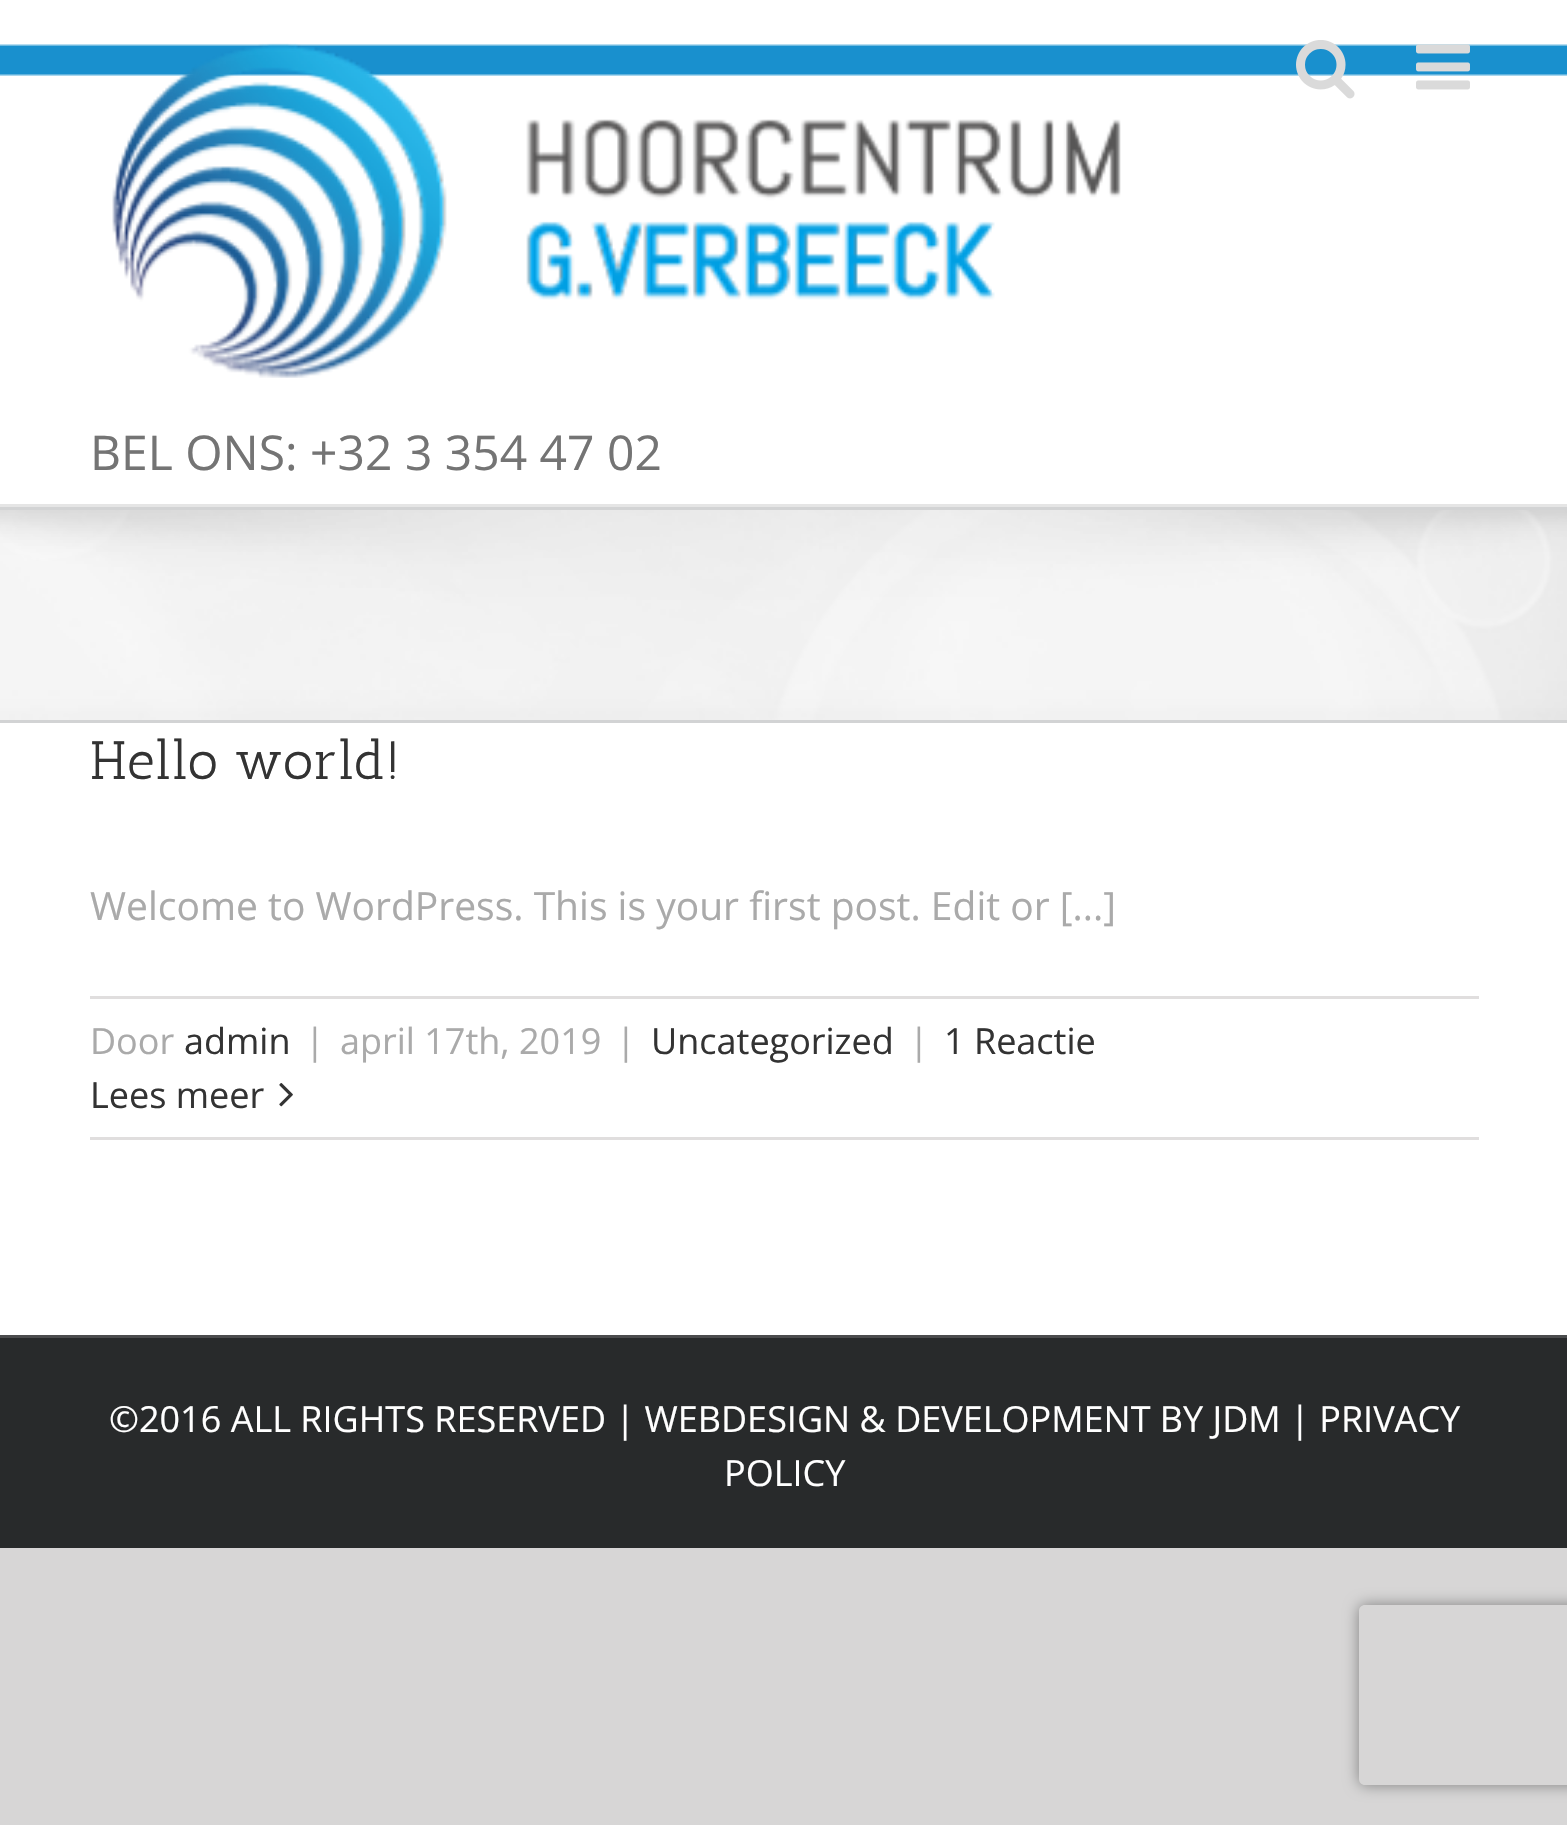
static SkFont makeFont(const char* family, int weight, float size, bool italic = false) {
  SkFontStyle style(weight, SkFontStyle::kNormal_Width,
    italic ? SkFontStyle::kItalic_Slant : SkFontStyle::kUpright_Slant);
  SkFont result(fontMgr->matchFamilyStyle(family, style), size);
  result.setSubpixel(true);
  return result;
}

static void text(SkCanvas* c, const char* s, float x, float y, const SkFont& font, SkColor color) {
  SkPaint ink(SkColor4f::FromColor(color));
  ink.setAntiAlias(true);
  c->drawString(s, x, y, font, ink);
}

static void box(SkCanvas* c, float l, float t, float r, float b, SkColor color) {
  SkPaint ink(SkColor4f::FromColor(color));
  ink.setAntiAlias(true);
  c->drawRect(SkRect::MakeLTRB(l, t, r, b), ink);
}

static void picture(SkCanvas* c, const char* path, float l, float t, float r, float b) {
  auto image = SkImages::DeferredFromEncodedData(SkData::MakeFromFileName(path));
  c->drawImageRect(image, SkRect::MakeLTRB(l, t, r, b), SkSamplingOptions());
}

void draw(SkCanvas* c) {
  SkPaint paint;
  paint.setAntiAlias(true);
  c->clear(0xffd7d6d6);
  box(c, 0, 0, 1567, 1335, 0xffffffff);
  picture(c, "img_01.png", 0, 44, 1567, 76);
  box(c, 0, 504, 1567, 507, 0xffe5e5e5);
  picture(c, "img_02.png", 1296, 40, 1355, 99);
  picture(c, "img_03.png", 1416, 44, 1470, 90);
  picture(c, "img_04.png", 112, 43, 1121, 378);
  SkFont face1 = makeFont("Open Sans", 400, 48);
  text(c, "BEL ONS: +32 3 354 47 02", 90, 470, face1, 0xff747474);
  box(c, 0, 510, 1567, 720, 0xfff6f6f6);
  picture(c, "img_05.png", 0, 510, 1567, 720);
  box(c, 0, 507, 1567, 510, 0xffd2d3d4);
  box(c, 0, 720, 1567, 723, 0xffd2d3d4);
  SkFont face2 = makeFont("Antic Slab", 400, 54);
  text(c, "Hello world!", 90, 779, face2, 0xff333333);
  SkFont face3 = makeFont("Open Sans", 400, 39);
  text(c, "Welcome to WordPress. This is your first post. Edit or [...]", 90, 920, face3, 0xffaaaaaa);
  box(c, 90, 996, 1479, 999, 0xffe0dede);
  box(c, 90, 1137, 1479, 1140, 0xffe0dede);
  SkFont face4 = makeFont("Open Sans", 400, 36);
  text(c, "Door", 90, 1054, face4, 0xffaaaaaa);
  text(c, "admin", 184, 1054, face4, 0xff333333);
  text(c, "|", 305, 1054, face4, 0xffaaaaaa);
  text(c, "april 17th, 2019", 340, 1054, face4, 0xffaaaaaa);
  text(c, "|", 616, 1054, face4, 0xffaaaaaa);
  text(c, "Uncategorized", 651, 1054, face4, 0xff333333);
  text(c, "|", 909, 1054, face4, 0xffaaaaaa);
  text(c, "1 Reactie", 944, 1054, face4, 0xff333333);
  text(c, "Lees meer", 90, 1108, face4, 0xff333333);
  picture(c, "img_06.png", 279, 1083, 293, 1107);
  box(c, 0, 1338, 1567, 1548, 0xff282a2b);
  box(c, 0, 1335, 1567, 1338, 0xff4b4c4d);
  text(c, "©2016 ALL RIGHTS RESERVED | WEBDESIGN & DEVELOPMENT BY JDM | PRIVACY", 109, 1432, face4, 0xffffffff);
  text(c, "POLICY", 724, 1486, face4, 0xffffffff);
  c->save();
  c->clipPath(SkPathBuilder(SkPathFillType::kEvenOdd).moveTo(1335, 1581).lineTo(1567, 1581).lineTo(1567, 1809).lineTo(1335, 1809).close().moveTo(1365, 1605).lineTo(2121, 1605).cubicTo(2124.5f, 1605, 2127, 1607.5f, 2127, 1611).lineTo(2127, 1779).cubicTo(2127, 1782.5f, 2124.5f, 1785, 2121, 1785).lineTo(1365, 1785).cubicTo(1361.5f, 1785, 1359, 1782.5f, 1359, 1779).lineTo(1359, 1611).cubicTo(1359, 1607.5f, 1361.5f, 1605, 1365, 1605).close().detach(), true);
  paint.setColor(0xff808080);
  paint.setMaskFilter(SkMaskFilter::MakeBlur(kNormal_SkBlurStyle, 7.5f));
  c->drawRoundRect(SkRect::MakeLTRB(1359, 1605, 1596, 1785), 6, 6, paint);
  paint.setMaskFilter(nullptr);
  c->restore();
}
